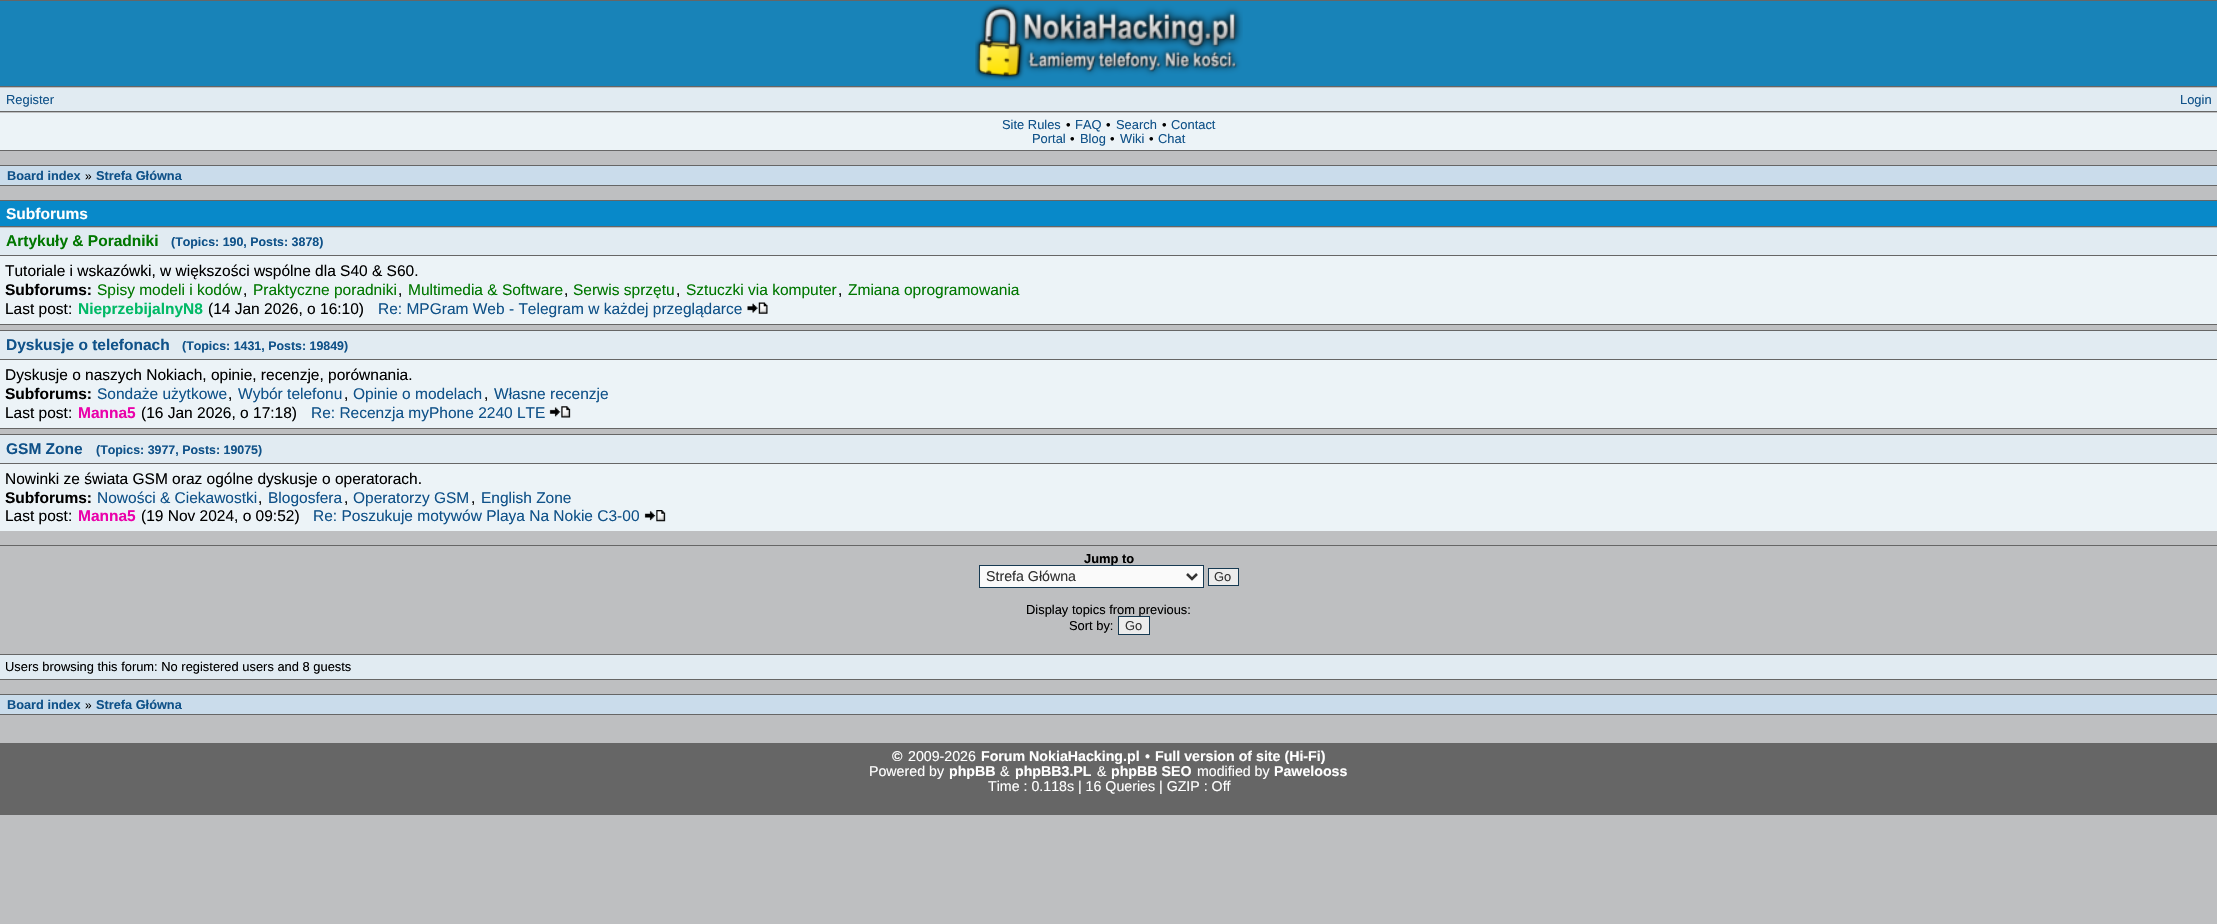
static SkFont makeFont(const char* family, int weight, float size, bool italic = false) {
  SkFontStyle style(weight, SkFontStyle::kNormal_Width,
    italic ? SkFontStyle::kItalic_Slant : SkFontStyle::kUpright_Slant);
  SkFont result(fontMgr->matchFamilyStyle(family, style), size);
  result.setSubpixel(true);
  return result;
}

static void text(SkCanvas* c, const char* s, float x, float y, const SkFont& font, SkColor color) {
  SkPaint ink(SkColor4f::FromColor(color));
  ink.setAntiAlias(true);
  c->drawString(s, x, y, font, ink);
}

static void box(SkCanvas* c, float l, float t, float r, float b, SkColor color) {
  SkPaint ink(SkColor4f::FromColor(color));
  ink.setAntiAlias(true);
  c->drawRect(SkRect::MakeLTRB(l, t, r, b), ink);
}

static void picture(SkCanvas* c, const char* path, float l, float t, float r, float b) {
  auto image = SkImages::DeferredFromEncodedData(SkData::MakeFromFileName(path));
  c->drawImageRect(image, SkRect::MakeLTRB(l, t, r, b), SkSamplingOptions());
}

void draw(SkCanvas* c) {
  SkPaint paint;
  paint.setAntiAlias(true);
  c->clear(0xffbebfc1);
  box(c, 0, 0, 2217, 1, 0xff666666);
  box(c, 0, 1, 2217, 86, 0xff1883b8);
  picture(c, "img_01.png", 975, 4, 1243, 81);
  box(c, 0, 86, 2217, 87, 0xff666666);
  box(c, 0, 88, 2217, 111, 0xffe1ebf2);
  SkFont face1 = makeFont("Liberation Sans", 400, 12.9f);
  text(c, "Register", 6, 104, face1, 0xff105289);
  text(c, "Login", 2180, 104, face1, 0xff105289);
  box(c, 0, 111, 2217, 112, 0xff666666);
  box(c, 0, 113, 2217, 150, 0xffecf3f7);
  text(c, "Site Rules", 1002, 129, face1, 0xff105289);
  text(c, "•", 1066, 129, face1, 0xff000000);
  text(c, "FAQ", 1075, 129, face1, 0xff105289);
  text(c, "•", 1106, 129, face1, 0xff000000);
  text(c, "Search", 1116, 129, face1, 0xff105289);
  text(c, "•", 1162, 129, face1, 0xff000000);
  text(c, "Contact", 1171, 129, face1, 0xff105289);
  text(c, "Portal", 1032, 143, face1, 0xff105289);
  text(c, "•", 1070, 143, face1, 0xff000000);
  text(c, "Blog", 1080, 143, face1, 0xff105289);
  text(c, "•", 1110, 143, face1, 0xff000000);
  text(c, "Wiki", 1120, 143, face1, 0xff105289);
  text(c, "•", 1149, 143, face1, 0xff000000);
  text(c, "Chat", 1158, 143, face1, 0xff105289);
  box(c, 0, 150, 2217, 151, 0xff666666);
  box(c, 0, 165, 2217, 166, 0xff666666);
  box(c, 0, 166, 2217, 185, 0xffcadceb);
  SkFont face2 = makeFont("Liberation Sans", 700, 12.75f);
  text(c, "Board index", 7, 180, face2, 0xff105289);
  SkFont face3 = makeFont("Liberation Sans", 400, 12);
  text(c, "»", 85, 180, face3, 0xff000000);
  text(c, "Strefa Główna", 96, 180, face2, 0xff105289);
  box(c, 0, 185, 2217, 186, 0xff666666);
  box(c, 0, 200, 2217, 201, 0xff666666);
  box(c, 0, 201, 2217, 226, 0xff0889c9);
  SkFont face4 = makeFont("Liberation Sans", 700, 15.5f);
  text(c, "Subforums", 6, 219, face4, 0xffffffff);
  box(c, 0, 226, 2217, 227, 0xff666666);
  box(c, 0, 228, 2217, 255, 0xffe1ebf2);
  text(c, "Artykuły & Poradniki", 6, 246, face4, 0xff007700);
  SkFont face5 = makeFont("Liberation Sans", 700, 12.4f);
  text(c, "(Topics: 190, Posts: 3878)", 171, 246, face5, 0xff105289);
  box(c, 0, 255, 2217, 256, 0xff666666);
  box(c, 0, 256, 2217, 324, 0xffecf3f7);
  SkFont face6 = makeFont("Liberation Sans", 400, 15.5f);
  text(c, "Tutoriale i wskazówki, w większości wspólne dla S40 & S60.", 5, 276, face6, 0xff000000);
  text(c, "Subforums:", 5, 295, face4, 0xff000000);
  text(c, "Spisy modeli i kodów", 97, 295, face6, 0xff007700);
  text(c, ",", 243, 295, face6, 0xff000000);
  text(c, "Praktyczne poradniki", 253, 295, face6, 0xff007700);
  text(c, ",", 398, 295, face6, 0xff000000);
  text(c, "Multimedia & Software", 408, 295, face6, 0xff007700);
  text(c, ",", 564, 295, face6, 0xff000000);
  text(c, "Serwis sprzętu", 573, 295, face6, 0xff007700);
  text(c, ",", 676, 295, face6, 0xff000000);
  text(c, "Sztuczki via komputer", 686, 295, face6, 0xff007700);
  text(c, ",", 838, 295, face6, 0xff000000);
  text(c, "Zmiana oprogramowania", 848, 295, face6, 0xff007700);
  text(c, "Last post:", 5, 314, face6, 0xff000000);
  text(c, "NieprzebijalnyN8", 78, 314, face4, 0xff00b966);
  text(c, "(14 Jan 2026, o 16:10)", 208, 314, face6, 0xff000000);
  text(c, "Re: MPGram Web - Telegram w każdej przeglądarce", 378, 314, face6, 0xff105289);
  picture(c, "img_02.png", 747, 302, 768, 314);
  box(c, 0, 324, 2217, 325, 0xff666666);
  box(c, 0, 330, 2217, 331, 0xff666666);
  box(c, 0, 331, 2217, 359, 0xffe1ebf2);
  text(c, "Dyskusje o telefonach", 6, 350, face4, 0xff105289);
  text(c, "(Topics: 1431, Posts: 19849)", 182, 350, face5, 0xff105289);
  box(c, 0, 359, 2217, 360, 0xff666666);
  box(c, 0, 360, 2217, 428, 0xffecf3f7);
  text(c, "Dyskusje o naszych Nokiach, opinie, recenzje, porównania.", 5, 380, face6, 0xff000000);
  text(c, "Subforums:", 5, 399, face4, 0xff000000);
  text(c, "Sondaże użytkowe", 97, 399, face6, 0xff105289);
  text(c, ",", 228, 399, face6, 0xff000000);
  text(c, "Wybór telefonu", 238, 399, face6, 0xff105289);
  text(c, ",", 344, 399, face6, 0xff000000);
  text(c, "Opinie o modelach", 353, 399, face6, 0xff105289);
  text(c, ",", 484, 399, face6, 0xff000000);
  text(c, "Własne recenzje", 494, 399, face6, 0xff105289);
  text(c, "Last post:", 5, 418, face6, 0xff000000);
  text(c, "Manna5", 78, 418, face4, 0xffea00aa);
  text(c, "(16 Jan 2026, o 17:18)", 141, 418, face6, 0xff000000);
  text(c, "Re: Recenzja myPhone 2240 LTE", 311, 418, face6, 0xff105289);
  picture(c, "img_03.png", 549, 406, 571, 418);
  box(c, 0, 428, 2217, 429, 0xff666666);
  box(c, 0, 434, 2217, 435, 0xff666666);
  box(c, 0, 435, 2217, 463, 0xffe1ebf2);
  text(c, "GSM Zone", 6, 454, face4, 0xff105289);
  text(c, "(Topics: 3977, Posts: 19075)", 96, 454, face5, 0xff105289);
  box(c, 0, 463, 2217, 464, 0xff666666);
  box(c, 0, 464, 2217, 531, 0xffecf3f7);
  text(c, "Nowinki ze świata GSM oraz ogólne dyskusje o operatorach.", 5, 484, face6, 0xff000000);
  text(c, "Subforums:", 5, 503, face4, 0xff000000);
  text(c, "Nowości & Ciekawostki", 97, 503, face6, 0xff105289);
  text(c, ",", 258, 503, face6, 0xff000000);
  text(c, "Blogosfera", 268, 503, face6, 0xff105289);
  text(c, ",", 344, 503, face6, 0xff000000);
  text(c, "Operatorzy GSM", 353, 503, face6, 0xff105289);
  text(c, ",", 471, 503, face6, 0xff000000);
  text(c, "English Zone", 481, 503, face6, 0xff105289);
  text(c, "Last post:", 5, 521, face6, 0xff000000);
  text(c, "Manna5", 78, 521, face4, 0xffea00aa);
  text(c, "(19 Nov 2024, o 09:52)", 141, 521, face6, 0xff000000);
  text(c, "Re: Poszukuje motywów Playa Na Nokie C3-00", 313, 521, face6, 0xff105289);
  picture(c, "img_04.png", 644, 510, 666, 522);
  box(c, 0, 545, 2217, 546, 0xff666666);
  SkFont face7 = makeFont("Liberation Sans", 700, 12.9f);
  text(c, "Jump to", 1084, 563, face7, 0xff000000);
  paint.setColor(0xfffafafa);
  c->drawRect(SkRect::MakeLTRB(979.5f, 565.5f, 1203.5f, 587.5f), paint);
  paint.setStyle(SkPaint::kStroke_Style);
  paint.setStrokeWidth(1);
  paint.setColor(0xff173a52);
  c->drawRect(SkRect::MakeLTRB(979.5f, 565.5f, 1203.5f, 587.5f), paint);
  paint.setStrokeWidth(2.5f);
  paint.setColor(0xff333333);
  c->drawPath(SkPathBuilder().moveTo(1187, 574).lineTo(1192, 579).lineTo(1197, 574).detach(), paint);
  SkFont face8 = makeFont("Liberation Sans", 400, 14.2f);
  text(c, "Strefa Główna", 986, 581, face8, 0xff333333);
  paint.setStyle(SkPaint::kFill_Style);
  paint.setColor(0xffececec);
  c->drawRect(SkRect::MakeLTRB(1208.5f, 568.5f, 1238.5f, 585.5f), paint);
  paint.setStyle(SkPaint::kStroke_Style);
  paint.setStrokeWidth(1);
  paint.setColor(0xff173a52);
  c->drawRect(SkRect::MakeLTRB(1208.5f, 568.5f, 1238.5f, 585.5f), paint);
  text(c, "Go", 1214, 581, face1, 0xff333333);
  text(c, "Display topics from previous:", 1026, 614, face1, 0xff000000);
  text(c, "Sort by:", 1069, 630, face1, 0xff000000);
  paint.setStyle(SkPaint::kFill_Style);
  paint.setColor(0xffececec);
  c->drawRect(SkRect::MakeLTRB(1118.5f, 616.5f, 1149.5f, 634.5f), paint);
  paint.setStyle(SkPaint::kStroke_Style);
  paint.setColor(0xff173a52);
  c->drawRect(SkRect::MakeLTRB(1118.5f, 616.5f, 1149.5f, 634.5f), paint);
  text(c, "Go", 1125, 630, face1, 0xff333333);
  box(c, 0, 654, 2217, 655, 0xff666666);
  box(c, 0, 655, 2217, 679, 0xffe1ebf2);
  text(c, "Users browsing this forum: No registered users and 8 guests", 5, 671, face1, 0xff000000);
  box(c, 0, 679, 2217, 680, 0xff666666);
  box(c, 0, 694, 2217, 695, 0xff666666);
  box(c, 0, 695, 2217, 714, 0xffcadceb);
  text(c, "Board index", 7, 709, face2, 0xff105289);
  text(c, "»", 85, 709, face3, 0xff000000);
  text(c, "Strefa Główna", 96, 709, face2, 0xff105289);
  box(c, 0, 714, 2217, 715, 0xff666666);
  box(c, 0, 743, 2217, 815, 0xff666666);
  SkFont face9 = makeFont("Liberation Sans", 700, 14.2f);
  text(c, "©", 892, 761, face9, 0xffffffff);
  text(c, "2009-2026", 908, 761, face8, 0xffffffff);
  text(c, "Forum NokiaHacking.pl", 981, 761, face9, 0xffffffff);
  text(c, "•", 1145, 761, face8, 0xffffffff);
  text(c, "Full version of site (Hi-Fi)", 1155, 761, face9, 0xffffffff);
  text(c, "Powered by", 869, 776, face8, 0xffffffff);
  text(c, "phpBB", 949, 776, face9, 0xffffffff);
  text(c, "&", 1000, 776, face8, 0xffffffff);
  text(c, "phpBB3.PL", 1015, 776, face9, 0xffffffff);
  text(c, "&", 1097, 776, face8, 0xffffffff);
  text(c, "phpBB SEO", 1111, 776, face9, 0xffffffff);
  text(c, "modified by", 1197, 776, face8, 0xffffffff);
  text(c, "Pawelooss", 1274, 776, face9, 0xffffffff);
  text(c, "Time : 0.118s | 16 Queries | GZIP : Off", 988, 791, face8, 0xffffffff);
}
